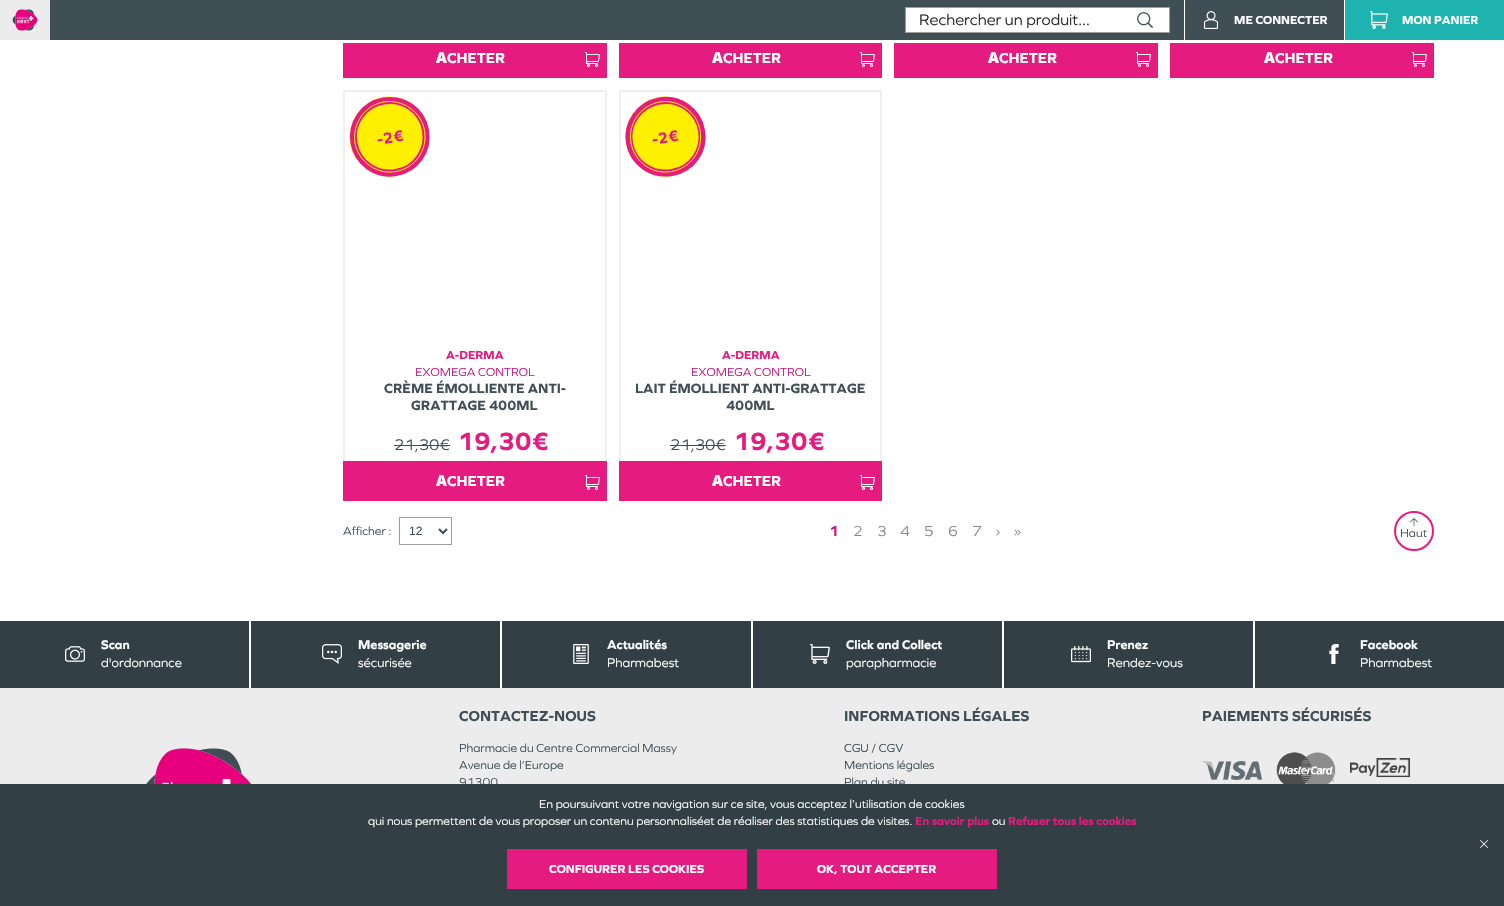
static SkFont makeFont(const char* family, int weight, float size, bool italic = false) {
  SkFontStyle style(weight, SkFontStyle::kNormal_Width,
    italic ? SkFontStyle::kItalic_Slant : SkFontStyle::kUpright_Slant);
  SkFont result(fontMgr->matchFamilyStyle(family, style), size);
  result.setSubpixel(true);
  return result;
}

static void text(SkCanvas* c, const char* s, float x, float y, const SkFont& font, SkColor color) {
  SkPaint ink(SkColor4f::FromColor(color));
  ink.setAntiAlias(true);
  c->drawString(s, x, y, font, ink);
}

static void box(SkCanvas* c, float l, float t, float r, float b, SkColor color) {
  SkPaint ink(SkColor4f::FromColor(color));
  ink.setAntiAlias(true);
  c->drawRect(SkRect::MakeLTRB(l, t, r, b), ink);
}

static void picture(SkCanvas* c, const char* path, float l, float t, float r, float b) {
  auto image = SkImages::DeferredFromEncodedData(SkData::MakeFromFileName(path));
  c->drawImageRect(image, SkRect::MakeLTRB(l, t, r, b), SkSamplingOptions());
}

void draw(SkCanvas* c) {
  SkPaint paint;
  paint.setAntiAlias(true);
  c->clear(0xffffffff);
  box(c, 0, 0, 50, 40, 0xffececec);
  picture(c, "img_01.png", 12, 9, 38, 31);
  box(c, 50, 0, 1184, 40, 0xff404e55);
  paint.setColor(0xffffffff);
  c->drawRect(SkRect::MakeLTRB(905.5f, 7.5f, 1169.5f, 32.5f), paint);
  paint.setStyle(SkPaint::kStroke_Style);
  paint.setStrokeWidth(1);
  paint.setColor(0xff9d9d9c);
  c->drawRect(SkRect::MakeLTRB(905.5f, 7.5f, 1169.5f, 32.5f), paint);
  SkFont face1 = makeFont("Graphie", 400, 16);
  text(c, "Rechercher un produit...", 919, 25, face1, 0xff2a2b29);
  picture(c, "img_02.png", 1137, 12, 1153, 28);
  box(c, 1185, 0, 1344, 40, 0xff404e55);
  picture(c, "img_03.png", 1203, 11, 1219, 29);
  SkFont face2 = makeFont("Graphie", 700, 12);
  text(c, "ME CONNECTER", 1234, 24, face2, 0xffffffff);
  box(c, 1345, 0, 1504, 40, 0xff1fb3b0);
  picture(c, "img_04.png", 1370, 11, 1388, 29);
  text(c, "MON PANIER", 1402, 24, face2, 0xffffffff);
  box(c, 343, 43, 607, 78, 0xffe61b80);
  SkFont face3 = makeFont("Noto Sans", 900, 15);
  text(c, "A", 436, 63, face3, 0xffffffff);
  SkFont face4 = makeFont("Graphie", 700, 15);
  text(c, "CHETER", 447, 63, face4, 0xffffffff);
  picture(c, "img_05.png", 585, 52, 600, 67);
  box(c, 619, 43, 882, 78, 0xffe61b80);
  text(c, "A", 712, 63, face3, 0xffffffff);
  text(c, "CHETER", 723, 63, face4, 0xffffffff);
  picture(c, "img_05.png", 860, 52, 875, 67);
  box(c, 894, 43, 1158, 78, 0xffe61b80);
  text(c, "A", 988, 63, face3, 0xffffffff);
  text(c, "CHETER", 999, 63, face4, 0xffffffff);
  picture(c, "img_05.png", 1136, 52, 1151, 67);
  box(c, 1170, 43, 1434, 78, 0xffe61b80);
  text(c, "A", 1264, 63, face3, 0xffffffff);
  text(c, "CHETER", 1275, 63, face4, 0xffffffff);
  picture(c, "img_05.png", 1412, 52, 1427, 67);
  box(c, 343, 90, 607, 92, 0xffefefef);
  box(c, 605, 90, 607, 461, 0xffefefef);
  box(c, 343, 90, 345, 461, 0xffefefef);
  paint.setStyle(SkPaint::kFill_Style);
  paint.setColor(0xffffef00);
  c->drawPath(SkPathBuilder().moveTo(383, 97).cubicTo(405, 94, 425, 108, 429, 130).cubicTo(433, 152, 418, 172, 397, 176).cubicTo(375, 180, 354, 165, 350, 144).cubicTo(347, 122, 361, 101, 383, 97).close().detach(), paint);
  paint.setStyle(SkPaint::kStroke_Style);
  paint.setStrokeWidth(7);
  paint.setColor(0xffe61b80);
  c->drawPath(SkPathBuilder().moveTo(383.5f, 101).cubicTo(403.5f, 97.5f, 422, 110.5f, 425.5f, 130.5f).cubicTo(429, 150.5f, 416, 169, 396, 172.5f).cubicTo(376.5f, 176, 357.5f, 163, 354, 143).cubicTo(350.5f, 123.5f, 363.5f, 104.5f, 383.5f, 101).close().detach(), paint);
  SkFont face5 = makeFont("Graphie", 700, 16);
  c->save();
  c->rotate(-10, 378, 145);
  text(c, "-2€", 378, 145, face5, 0xffe61b80);
  c->restore();
  paint.setStrokeWidth(1);
  paint.setColor(0xffffef00);
  c->drawPath(SkPathBuilder().moveTo(383.5f, 102).cubicTo(403, 99, 421, 111.5f, 424.5f, 130.5f).cubicTo(428, 150, 415, 168, 396, 171.5f).cubicTo(377, 175, 358.5f, 162, 355, 143).cubicTo(352, 124, 364.5f, 105.5f, 383.5f, 102).close().detach(), paint);
  text(c, "A-DERMA", 446, 359, face2, 0xffe61b80);
  SkFont face6 = makeFont("Graphie", 400, 12);
  text(c, "EXOMEGA CONTROL", 415, 376, face6, 0xffcc1984);
  SkFont face7 = makeFont("Graphie", 700, 14);
  text(c, "CRÈME ÉMOLLIENTE ANTI-", 384, 393, face7, 0xff404e55);
  text(c, "GRATTAGE 400ML", 411, 410, face7, 0xff404e55);
  text(c, "21,30€", 394, 450, face1, 0xff404e55);
  box(c, 394, 445, 450, 446, 0xff404e55);
  SkFont face8 = makeFont("Graphie", 700, 26);
  text(c, "19,30€", 457, 450, face8, 0xffe61b80);
  box(c, 343, 461, 607, 501, 0xffe61b80);
  text(c, "A", 436, 486, face3, 0xffffffff);
  text(c, "CHETER", 447, 486, face4, 0xffffffff);
  picture(c, "img_05.png", 585, 475, 600, 490);
  box(c, 619, 90, 882, 92, 0xffefefef);
  box(c, 880, 90, 882, 461, 0xffefefef);
  box(c, 619, 90, 621, 461, 0xffefefef);
  paint.setStyle(SkPaint::kFill_Style);
  c->drawPath(SkPathBuilder().moveTo(659, 97).cubicTo(680, 94, 701, 108, 705, 130).cubicTo(709, 152, 694, 172, 673, 176).cubicTo(651, 180, 630, 165, 626, 144).cubicTo(622, 122, 637, 101, 659, 97).close().detach(), paint);
  paint.setStyle(SkPaint::kStroke_Style);
  paint.setStrokeWidth(7);
  paint.setColor(0xffe61b80);
  c->drawPath(SkPathBuilder().moveTo(659.5f, 101).cubicTo(679, 97.5f, 698, 110.5f, 701.5f, 130.5f).cubicTo(705, 150.5f, 692, 169, 672, 172.5f).cubicTo(652, 176, 633, 163, 629.5f, 143).cubicTo(626, 123.5f, 639.5f, 104.5f, 659.5f, 101).close().detach(), paint);
  c->save();
  c->rotate(-10, 653, 145);
  text(c, "-2€", 653, 145, face5, 0xffe61b80);
  c->restore();
  paint.setStrokeWidth(1);
  paint.setColor(0xffffef00);
  c->drawPath(SkPathBuilder().moveTo(659.5f, 102).cubicTo(678.5f, 99, 697, 111.5f, 700, 130.5f).cubicTo(703.5f, 150, 691, 168, 671.5f, 171.5f).cubicTo(652.5f, 175, 634.5f, 162, 631, 143).cubicTo(627.5f, 124, 640.5f, 105.5f, 659.5f, 102).close().detach(), paint);
  text(c, "A-DERMA", 722, 359, face2, 0xffe61b80);
  text(c, "EXOMEGA CONTROL", 691, 376, face6, 0xffcc1984);
  text(c, "LAIT ÉMOLLIENT ANTI-GRATTAGE", 635, 393, face7, 0xff404e55);
  text(c, "400ML", 726, 410, face7, 0xff404e55);
  text(c, "21,30€", 670, 450, face1, 0xff404e55);
  box(c, 670, 445, 726, 446, 0xff404e55);
  text(c, "19,30€", 733, 450, face8, 0xffe61b80);
  box(c, 619, 461, 882, 501, 0xffe61b80);
  text(c, "A", 712, 486, face3, 0xffffffff);
  text(c, "CHETER", 723, 486, face4, 0xffffffff);
  picture(c, "img_05.png", 860, 475, 875, 490);
  text(c, "Afficher :", 343, 535, face6, 0xff404e55);
  paint.setColor(0xff9d9d9c);
  c->drawRect(SkRect::MakeLTRB(399.5f, 517.5f, 451.5f, 544.5f), paint);
  paint.setStrokeWidth(2);
  paint.setColor(0xff404e55);
  c->drawPath(SkPathBuilder().moveTo(439, 529).lineTo(443, 533).lineTo(447, 529).detach(), paint);
  SkFont face9 = makeFont("Liberation Sans", 400, 12);
  text(c, "12", 409, 535, face9, 0xff404e55);
  text(c, "1", 829, 536, face4, 0xffcc1984);
  SkFont face10 = makeFont("Graphie", 400, 15);
  text(c, "2", 853, 536, face10, 0xff8a8786);
  text(c, "3", 877, 536, face10, 0xff8a8786);
  text(c, "4", 900, 536, face10, 0xff8a8786);
  text(c, "5", 924, 536, face10, 0xff8a8786);
  text(c, "6", 948, 536, face10, 0xff8a8786);
  text(c, "7", 972, 536, face10, 0xff8a8786);
  text(c, "›", 996, 536, face10, 0xff8a8786);
  text(c, "»", 1014, 536, face10, 0xff8a8786);
  paint.setColor(0xffe61b80);
  c->drawCircle(1414, 531, 19, paint);
  picture(c, "img_06.png", 1410, 518, 1418, 526);
  text(c, "Haut", 1400, 537, face6, 0xff404e55);
  box(c, 0, 621, 249, 688, 0xff324045);
  picture(c, "img_07.png", 65, 646, 85, 662);
  SkFont face11 = makeFont("Graphie", 700, 13);
  text(c, "Scan", 101, 649, face11, 0xffffffff);
  SkFont face12 = makeFont("Graphie", 400, 13);
  text(c, "d'ordonnance", 101, 667, face12, 0xffffffff);
  box(c, 251, 621, 500, 688, 0xff324045);
  picture(c, "img_08.png", 322, 644, 342, 664);
  text(c, "Messagerie", 358, 649, face11, 0xffffffff);
  text(c, "sécurisée", 358, 667, face12, 0xffffffff);
  box(c, 502, 621, 751, 688, 0xff324045);
  picture(c, "img_09.png", 573, 644, 589, 664);
  text(c, "Actualités", 607, 649, face11, 0xffffffff);
  text(c, "Pharmabest", 607, 667, face12, 0xffffffff);
  box(c, 753, 621, 1002, 688, 0xff324045);
  picture(c, "img_10.png", 810, 644, 830, 664);
  text(c, "Click and Collect", 846, 649, face11, 0xffffffff);
  text(c, "parapharmacie", 846, 667, face12, 0xffffffff);
  box(c, 1004, 621, 1253, 688, 0xff324045);
  picture(c, "img_11.png", 1071, 645, 1091, 663);
  text(c, "Prenez", 1107, 649, face11, 0xffffffff);
  text(c, "Rendez-vous", 1107, 667, face12, 0xffffffff);
  box(c, 1255, 621, 1504, 688, 0xff324045);
  picture(c, "img_12.png", 1329, 644, 1339, 664);
  text(c, "Facebook", 1360, 649, face11, 0xffffffff);
  text(c, "Pharmabest", 1360, 667, face12, 0xffffffff);
  box(c, 0, 688, 1504, 784, 0xffececec);
  picture(c, "img_13.png", 146, 748, 251, 784);
  text(c, "CONTACTEZ-NOUS", 459, 721, face4, 0xff404e55);
  text(c, "Pharmacie du Centre Commercial Massy", 459, 752, face6, 0xff404e55);
  text(c, "Avenue de l’Europe", 459, 769, face6, 0xff404e55);
  text(c, "91300", 459, 786, face6, 0xff404e55);
  text(c, "INFORMATIONS LÉGALES", 844, 721, face4, 0xff404e55);
  text(c, "CGU / CGV", 844, 752, face6, 0xff404e55);
  text(c, "Mentions légales", 844, 769, face6, 0xff404e55);
  text(c, "Plan du site", 844, 786, face6, 0xff404e55);
  text(c, "PAIEMENTS SÉCURISÉS", 1202, 721, face4, 0xff404e55);
  picture(c, "img_14.png", 1202, 761, 1262, 780);
  picture(c, "img_15.png", 1276, 752, 1336, 784);
  picture(c, "img_16.png", 1350, 758, 1410, 778);
  box(c, 0, 784, 1504, 906, 0xff324045);
  text(c, "En poursuivant votre navigation sur ce site, vous acceptez l’utilisation de cookies", 539, 808, face6, 0xffffffff);
  text(c, "qui nous permettent de vous proposer un contenu personnaliséet de réaliser des statistiques de visites.", 368, 825, face6, 0xffffffff);
  text(c, "En savoir plus", 915, 825, face2, 0xffe61b80);
  text(c, "ou", 992, 825, face6, 0xffffffff);
  text(c, "Refuser tous les cookies", 1008, 825, face2, 0xffe61b80);
  box(c, 507, 849, 747, 889, 0xffe61b80);
  text(c, "CONFIGURER LES COOKIES", 549, 873, face2, 0xffffffff);
  box(c, 757, 849, 997, 889, 0xffe61b80);
  text(c, "OK, TOUT ACCEPTER", 817, 873, face2, 0xffffffff);
  picture(c, "img_17.png", 1480, 840, 1488, 848);
}
